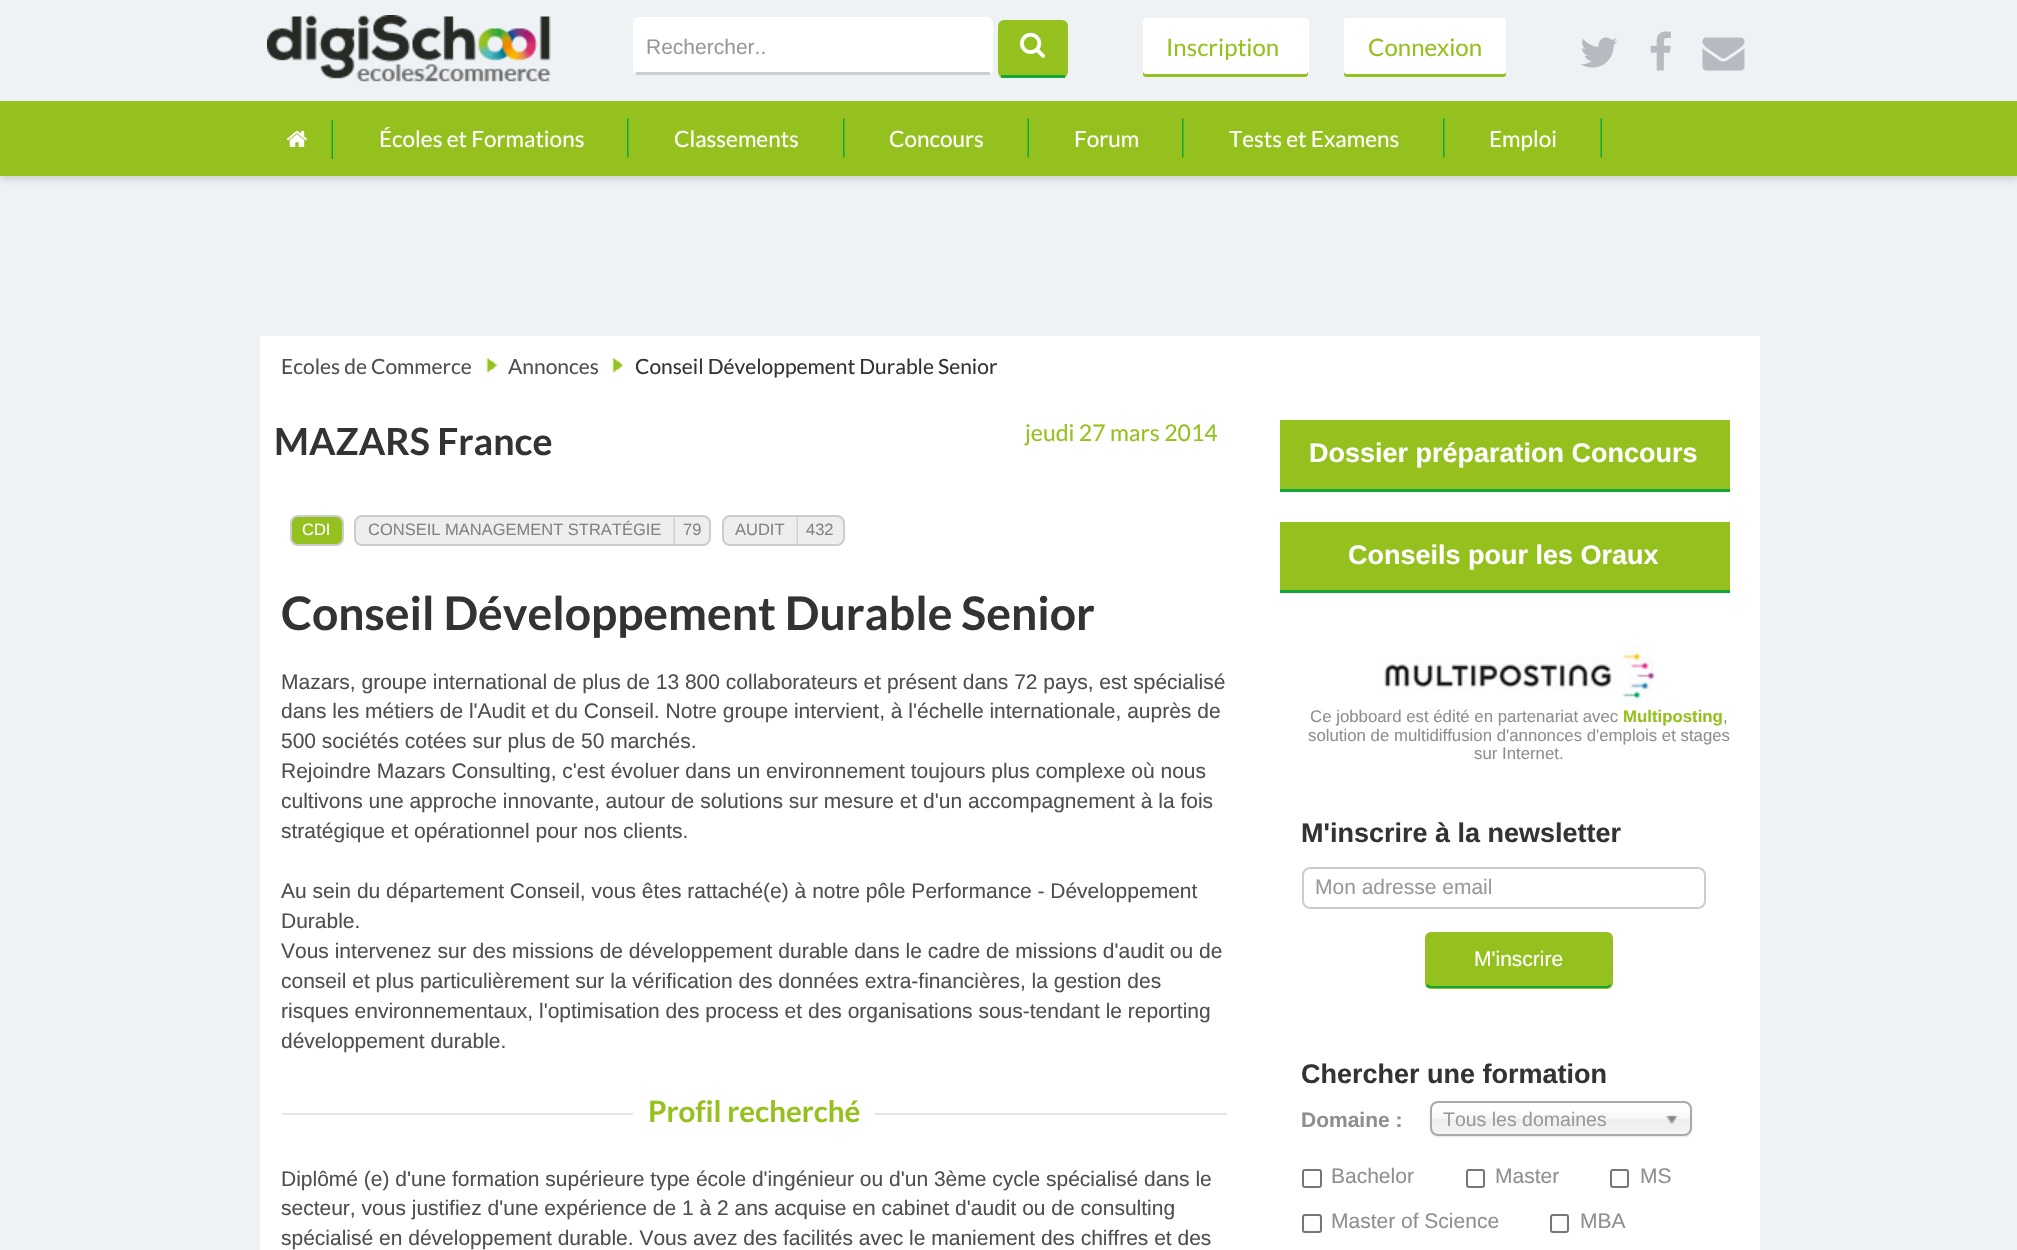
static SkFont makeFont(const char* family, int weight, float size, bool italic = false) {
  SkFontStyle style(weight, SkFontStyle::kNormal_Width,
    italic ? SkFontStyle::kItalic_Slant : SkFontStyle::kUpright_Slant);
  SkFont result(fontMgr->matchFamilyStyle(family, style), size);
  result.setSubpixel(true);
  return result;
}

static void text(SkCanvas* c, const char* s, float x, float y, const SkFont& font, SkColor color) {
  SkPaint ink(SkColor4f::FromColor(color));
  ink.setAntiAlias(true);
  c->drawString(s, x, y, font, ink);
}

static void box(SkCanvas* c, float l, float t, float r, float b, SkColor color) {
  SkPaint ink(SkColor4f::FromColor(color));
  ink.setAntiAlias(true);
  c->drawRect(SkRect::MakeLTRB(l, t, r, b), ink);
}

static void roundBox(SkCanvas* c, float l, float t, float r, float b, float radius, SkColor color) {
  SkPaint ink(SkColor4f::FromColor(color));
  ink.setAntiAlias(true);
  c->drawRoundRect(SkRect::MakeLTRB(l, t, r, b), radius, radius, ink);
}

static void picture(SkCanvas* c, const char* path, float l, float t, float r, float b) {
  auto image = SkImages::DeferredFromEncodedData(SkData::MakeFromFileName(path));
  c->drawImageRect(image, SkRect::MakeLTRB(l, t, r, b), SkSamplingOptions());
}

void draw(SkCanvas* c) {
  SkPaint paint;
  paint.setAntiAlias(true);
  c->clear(0xffeef2f5);
  paint.setColor(0xffcccccc);
  paint.setMaskFilter(SkMaskFilter::MakeBlur(kNormal_SkBlurStyle, 4));
  c->drawRect(SkRect::MakeLTRB(0, 3, 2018, 179), paint);
  paint.setMaskFilter(nullptr);
  box(c, 0, 0, 2017, 101, 0xffeef2f5);
  picture(c, "img_01.png", 267, 15, 551, 82);
  roundBox(c, 633, 17, 993, 75, 6, 0xffffffff);
  box(c, 636, 72, 990, 75, 0xffcccccc);
  SkFont face1 = makeFont("Liberation Sans", 400, 21);
  text(c, "Rechercher..", 646, 54, face1, 0xff999999);
  roundBox(c, 998, 20, 1068, 78, 6, 0xff95c11e);
  box(c, 1001, 75, 1065, 78, 0xff12a537);
  picture(c, "img_02.png", 1020, 32, 1045, 58);
  paint.setColor(0xff95c11e);
  c->drawPath(SkPathBuilder().moveTo(1143, 70).lineTo(1143, 74).cubicTo(1143, 76, 1144, 77, 1146, 77).lineTo(1280, 77).lineTo(1280, 21).lineTo(1280, 74).lineTo(1146, 74).cubicTo(1144, 74, 1143, 72, 1143, 70).close().detach(), paint);
  paint.setColor(0xffffffff);
  c->drawPath(SkPathBuilder().moveTo(1146, 18).lineTo(1280, 18).lineTo(1280, 74).lineTo(1146, 74).cubicTo(1144.5f, 74, 1143, 72.5f, 1143, 71).lineTo(1143, 21).cubicTo(1143, 19.5f, 1144.5f, 18, 1146, 18).close().detach(), paint);
  SkFont face2 = makeFont("Lato", 400, 24);
  text(c, "Inscription", 1166, 56, face2, 0xff95c11e);
  box(c, 1145, 73, 1146, 74, 0xffffffff);
  box(c, 1143, 71, 1144, 72, 0xffffffff);
  paint.setColor(0xff95c11e);
  c->drawPath(SkPathBuilder().moveTo(1280, 73.5f).lineTo(1280, 77).lineTo(1305, 77).cubicTo(1306.5f, 77, 1308, 75.5f, 1308, 74).lineTo(1308, 70.5f).cubicTo(1308, 72, 1306.5f, 73.5f, 1305, 73.5f).close().detach(), paint);
  paint.setColor(0xffffffff);
  c->drawPath(SkPathBuilder().moveTo(1280, 18).lineTo(1305, 18).cubicTo(1306.5f, 18, 1308, 19.5f, 1308, 21).lineTo(1308, 71).cubicTo(1308, 72.5f, 1306.5f, 74, 1305, 74).lineTo(1280, 74).close().detach(), paint);
  box(c, 1306, 18, 1307, 19, 0xffffffff);
  box(c, 1307, 20, 1309, 72, 0xffffffff);
  box(c, 1305, 73, 1307, 74, 0xffffffff);
  paint.setColor(0xff95c11e);
  c->drawPath(SkPathBuilder().moveTo(1344, 70).lineTo(1344, 74).cubicTo(1344, 76, 1345, 77, 1347, 77).lineTo(1503, 77).cubicTo(1505, 77, 1506, 76, 1506, 74).lineTo(1506, 70).cubicTo(1506, 72, 1505, 74, 1503, 74).lineTo(1347, 74).cubicTo(1345, 74, 1344, 72, 1344, 70).close().detach(), paint);
  paint.setColor(0xffffffff);
  c->drawRoundRect(SkRect::MakeLTRB(1345, 19, 1505, 73), 2, 2, paint);
  paint.setStyle(SkPaint::kStroke_Style);
  paint.setStrokeWidth(2);
  c->drawRoundRect(SkRect::MakeLTRB(1345, 19, 1505, 73), 2, 2, paint);
  text(c, "Connexion", 1368, 56, face2, 0xff95c11e);
  picture(c, "img_03.png", 1581, 37, 1618, 68);
  picture(c, "img_04.png", 1650, 31, 1671, 71);
  picture(c, "img_05.png", 1702, 37, 1745, 71);
  box(c, 0, 101, 2017, 176, 0xff95c11e);
  picture(c, "img_06.png", 331, 120, 333, 159);
  picture(c, "img_07.png", 286, 130, 307, 147);
  picture(c, "img_08.png", 627, 118, 629, 158);
  SkFont face3 = makeFont("Lato", 400, 22.5f);
  text(c, "Écoles et Formations", 379, 147, face3, 0xffffffff);
  picture(c, "img_08.png", 843, 118, 845, 158);
  text(c, "Classements", 674, 147, face3, 0xffffffff);
  picture(c, "img_09.png", 1027, 118, 1029, 158);
  text(c, "Concours", 889, 147, face3, 0xffffffff);
  picture(c, "img_08.png", 1182, 118, 1184, 158);
  text(c, "Forum", 1074, 147, face3, 0xffffffff);
  picture(c, "img_08.png", 1443, 118, 1445, 158);
  text(c, "Tests et Examens", 1229, 147, face3, 0xffffffff);
  picture(c, "img_09.png", 1600, 118, 1602, 158);
  text(c, "Emploi", 1489, 147, face3, 0xffffffff);
  box(c, 260, 336, 1760, 1250, 0xffffffff);
  picture(c, "img_10.png", 485, 358, 497, 373);
  SkFont face4 = makeFont("Lato", 400, 21);
  text(c, "Ecoles de Commerce", 281, 374, face4, 0xff4f4f4f);
  picture(c, "img_11.png", 611, 358, 623, 373);
  text(c, "Annonces", 508, 374, face4, 0xff4f4f4f);
  text(c, "Conseil Développement Durable Senior", 635, 374, face4, 0xff333333);
  SkFont face5 = makeFont("Lato", 700, 37.5f);
  text(c, "MAZARS France", 274, 455, face5, 0xff333333);
  SkFont face6 = makeFont("Lato", 400, 23);
  text(c, "jeudi 27 mars 2014", 1025, 441, face6, 0xff95c11e);
  paint.setStyle(SkPaint::kFill_Style);
  paint.setColor(0xff95c11e);
  c->drawRoundRect(SkRect::MakeLTRB(291, 516, 343, 545), 7, 7, paint);
  paint.setStyle(SkPaint::kStroke_Style);
  paint.setColor(0xffcccccc);
  c->drawRoundRect(SkRect::MakeLTRB(291, 516, 343, 545), 7, 7, paint);
  SkFont face7 = makeFont("Liberation Sans", 400, 16.5f);
  text(c, "CDI", 302, 535, face7, 0xffffffff);
  paint.setStyle(SkPaint::kFill_Style);
  paint.setColor(0xffeeeeee);
  c->drawRoundRect(SkRect::MakeLTRB(355, 516, 710, 545), 7, 7, paint);
  paint.setStyle(SkPaint::kStroke_Style);
  paint.setColor(0xffcccccc);
  c->drawRoundRect(SkRect::MakeLTRB(355, 516, 710, 545), 7, 7, paint);
  text(c, "CONSEIL MANAGEMENT STRATÉGIE", 368, 535, face7, 0xff838383);
  picture(c, "img_12.png", 673, 517, 675, 545);
  text(c, "79", 683, 535, face7, 0xff838383);
  paint.setStyle(SkPaint::kFill_Style);
  paint.setColor(0xffeeeeee);
  c->drawRoundRect(SkRect::MakeLTRB(723, 516, 844, 545), 7, 7, paint);
  paint.setStyle(SkPaint::kStroke_Style);
  paint.setColor(0xffcccccc);
  c->drawRoundRect(SkRect::MakeLTRB(723, 516, 844, 545), 7, 7, paint);
  text(c, "AUDIT", 735, 535, face7, 0xff838383);
  picture(c, "img_12.png", 796, 517, 798, 545);
  text(c, "432", 806, 535, face7, 0xff838383);
  SkFont face8 = makeFont("Lato", 700, 46.25f);
  text(c, "Conseil Développement Durable Senior", 281, 630, face8, 0xff333333);
  text(c, "Mazars, groupe international de plus de 13 800 collaborateurs et présent dans 72 pays, est spécialisé", 281, 689, face1, 0xff4f4f4f);
  text(c, "dans les métiers de l'Audit et du Conseil. Notre groupe intervient, à l'échelle internationale, auprès de", 281, 718, face1, 0xff4f4f4f);
  text(c, "500 sociétés cotées sur plus de 50 marchés.", 281, 748, face1, 0xff4f4f4f);
  text(c, "Rejoindre Mazars Consulting, c'est évoluer dans un environnement toujours plus complexe où nous", 281, 778, face1, 0xff4f4f4f);
  text(c, "cultivons une approche innovante, autour de solutions sur mesure et d'un accompagnement à la fois", 281, 808, face1, 0xff4f4f4f);
  text(c, "stratégique et opérationnel pour nos clients.", 281, 838, face1, 0xff4f4f4f);
  text(c, "Au sein du département Conseil, vous êtes rattaché(e) à notre pôle Performance - Développement", 281, 898, face1, 0xff4f4f4f);
  text(c, "Durable.", 281, 928, face1, 0xff4f4f4f);
  text(c, "Vous intervenez sur des missions de développement durable dans le cadre de missions d'audit ou de", 281, 958, face1, 0xff4f4f4f);
  text(c, "conseil et plus particulièrement sur la vérification des données extra-financières, la gestion des", 281, 988, face1, 0xff4f4f4f);
  text(c, "risques environnementaux, l'optimisation des process et des organisations sous-tendant le reporting", 281, 1018, face1, 0xff4f4f4f);
  text(c, "développement durable.", 281, 1048, face1, 0xff4f4f4f);
  box(c, 282, 1113, 633, 1115, 0xffe5e5e5);
  SkFont face9 = makeFont("Lato", 700, 29.5f);
  text(c, "Profil recherché", 648, 1122, face9, 0xff95c11e);
  box(c, 875, 1113, 1227, 1115, 0xffe5e5e5);
  text(c, "Diplômé (e) d'une formation supérieure type école d'ingénieur ou d'un 3ème cycle spécialisé dans le", 281, 1186, face1, 0xff4f4f4f);
  text(c, "secteur, vous justifiez d'une expérience de 1 à 2 ans acquise en cabinet d'audit ou de consulting", 281, 1215, face1, 0xff4f4f4f);
  text(c, "spécialisé en développement durable. Vous avez des facilités avec le maniement des chiffres et des", 281, 1245, face1, 0xff4f4f4f);
  box(c, 1280, 420, 1730, 489, 0xff95c11e);
  box(c, 1280, 489, 1730, 492, 0xff12a537);
  SkFont face10 = makeFont("Liberation Sans", 700, 27);
  text(c, "Dossier préparation Concours", 1309, 462, face10, 0xffffffff);
  box(c, 1280, 522, 1730, 590, 0xff95c11e);
  box(c, 1280, 590, 1730, 593, 0xff12a537);
  text(c, "Conseils pour les Oraux", 1348, 564, face10, 0xffffffff);
  picture(c, "img_13.png", 1377, 645, 1662, 705);
  SkFont face11 = makeFont("Liberation Sans", 400, 16.8f);
  text(c, "Ce jobboard est édité en partenariat avec", 1310, 722, face11, 0xff8f8f8f);
  SkFont face12 = makeFont("Liberation Sans", 700, 16.8f);
  text(c, "Multiposting", 1623, 722, face12, 0xff95c11e);
  text(c, ",", 1723, 722, face11, 0xff8f8f8f);
  text(c, "solution de multidiffusion d'annonces d'emplois et stages", 1308, 741, face11, 0xff8f8f8f);
  text(c, "sur Internet.", 1474, 759, face11, 0xff8f8f8f);
  text(c, "M'inscrire à la newsletter", 1301, 842, face10, 0xff333333);
  c->drawRoundRect(SkRect::MakeLTRB(1303, 868, 1705, 908), 7, 7, paint);
  text(c, "Mon adresse email", 1315, 894, face1, 0xff999999);
  roundBox(c, 1425, 932, 1613, 989, 6, 0xff95c11e);
  paint.setStyle(SkPaint::kFill_Style);
  paint.setColor(0xff12a537);
  c->drawPath(SkPathBuilder().moveTo(1611, 986).lineTo(1608, 988).lineTo(1430, 988).cubicTo(1429, 988, 1427, 987, 1426, 986).lineTo(1427, 984).lineTo(1431, 986).lineTo(1606, 986).cubicTo(1608, 986, 1609, 985, 1610, 984).close().detach(), paint);
  text(c, "M'inscrire", 1474, 966, face1, 0xffffffff);
  text(c, "Chercher une formation", 1301, 1083, face10, 0xff333333);
  SkFont face13 = makeFont("Liberation Sans", 700, 21);
  text(c, "Domaine :", 1301, 1127, face13, 0xff8f8f8f);
  paint.setColor(0x1a000000);
  paint.setMaskFilter(SkMaskFilter::MakeBlur(kNormal_SkBlurStyle, 1));
  c->drawRoundRect(SkRect::MakeLTRB(1430, 1103, 1692, 1137), 8, 8, paint);
  paint.setMaskFilter(nullptr);
  {
    const SkColor colors[] = {0xffffffff, 0xfff6f6f6, 0xffeeeeee, 0xfff4f4f4};
    const float stops[] = {0.2f, 0.5f, 0.52f, 1};
    const SkPoint ends[] = {{1561, 1103}, {1561, 1134}};
    paint.setShader(SkGradientShader::MakeLinear(ends, colors, stops, 4, SkTileMode::kClamp));
    paint.setAlpha(255);
  }
  c->drawRoundRect(SkRect::MakeLTRB(1431, 1103, 1691, 1134), 6, 6, paint);
  paint.setStyle(SkPaint::kStroke_Style);
  paint.setShader(nullptr);
  paint.setColor(0xffaaaaaa);
  c->drawRoundRect(SkRect::MakeLTRB(1431, 1102, 1691, 1135), 7, 7, paint);
  SkFont face14 = makeFont("Liberation Sans", 400, 19.5f);
  text(c, "Tous les domaines", 1443, 1126, face14, 0xff999999);
  picture(c, "img_14.png", 1666, 1115, 1678, 1124);
  paint.setColor(0xff767676);
  c->drawRoundRect(SkRect::MakeLTRB(1303, 1170, 1321, 1187), 2, 2, paint);
  text(c, "Bachelor", 1331, 1183, face1, 0xff8f8f8f);
  c->drawRoundRect(SkRect::MakeLTRB(1467, 1170, 1484, 1187), 2, 2, paint);
  text(c, "Master", 1495, 1183, face1, 0xff8f8f8f);
  c->drawRoundRect(SkRect::MakeLTRB(1611, 1170, 1628, 1187), 2, 2, paint);
  text(c, "MS", 1640, 1183, face1, 0xff8f8f8f);
  c->drawRoundRect(SkRect::MakeLTRB(1303, 1215, 1321, 1232), 2, 2, paint);
  text(c, "Master of Science", 1331, 1228, face1, 0xff8f8f8f);
  c->drawRoundRect(SkRect::MakeLTRB(1551, 1215, 1568, 1232), 2, 2, paint);
  text(c, "MBA", 1580, 1228, face1, 0xff8f8f8f);
}
